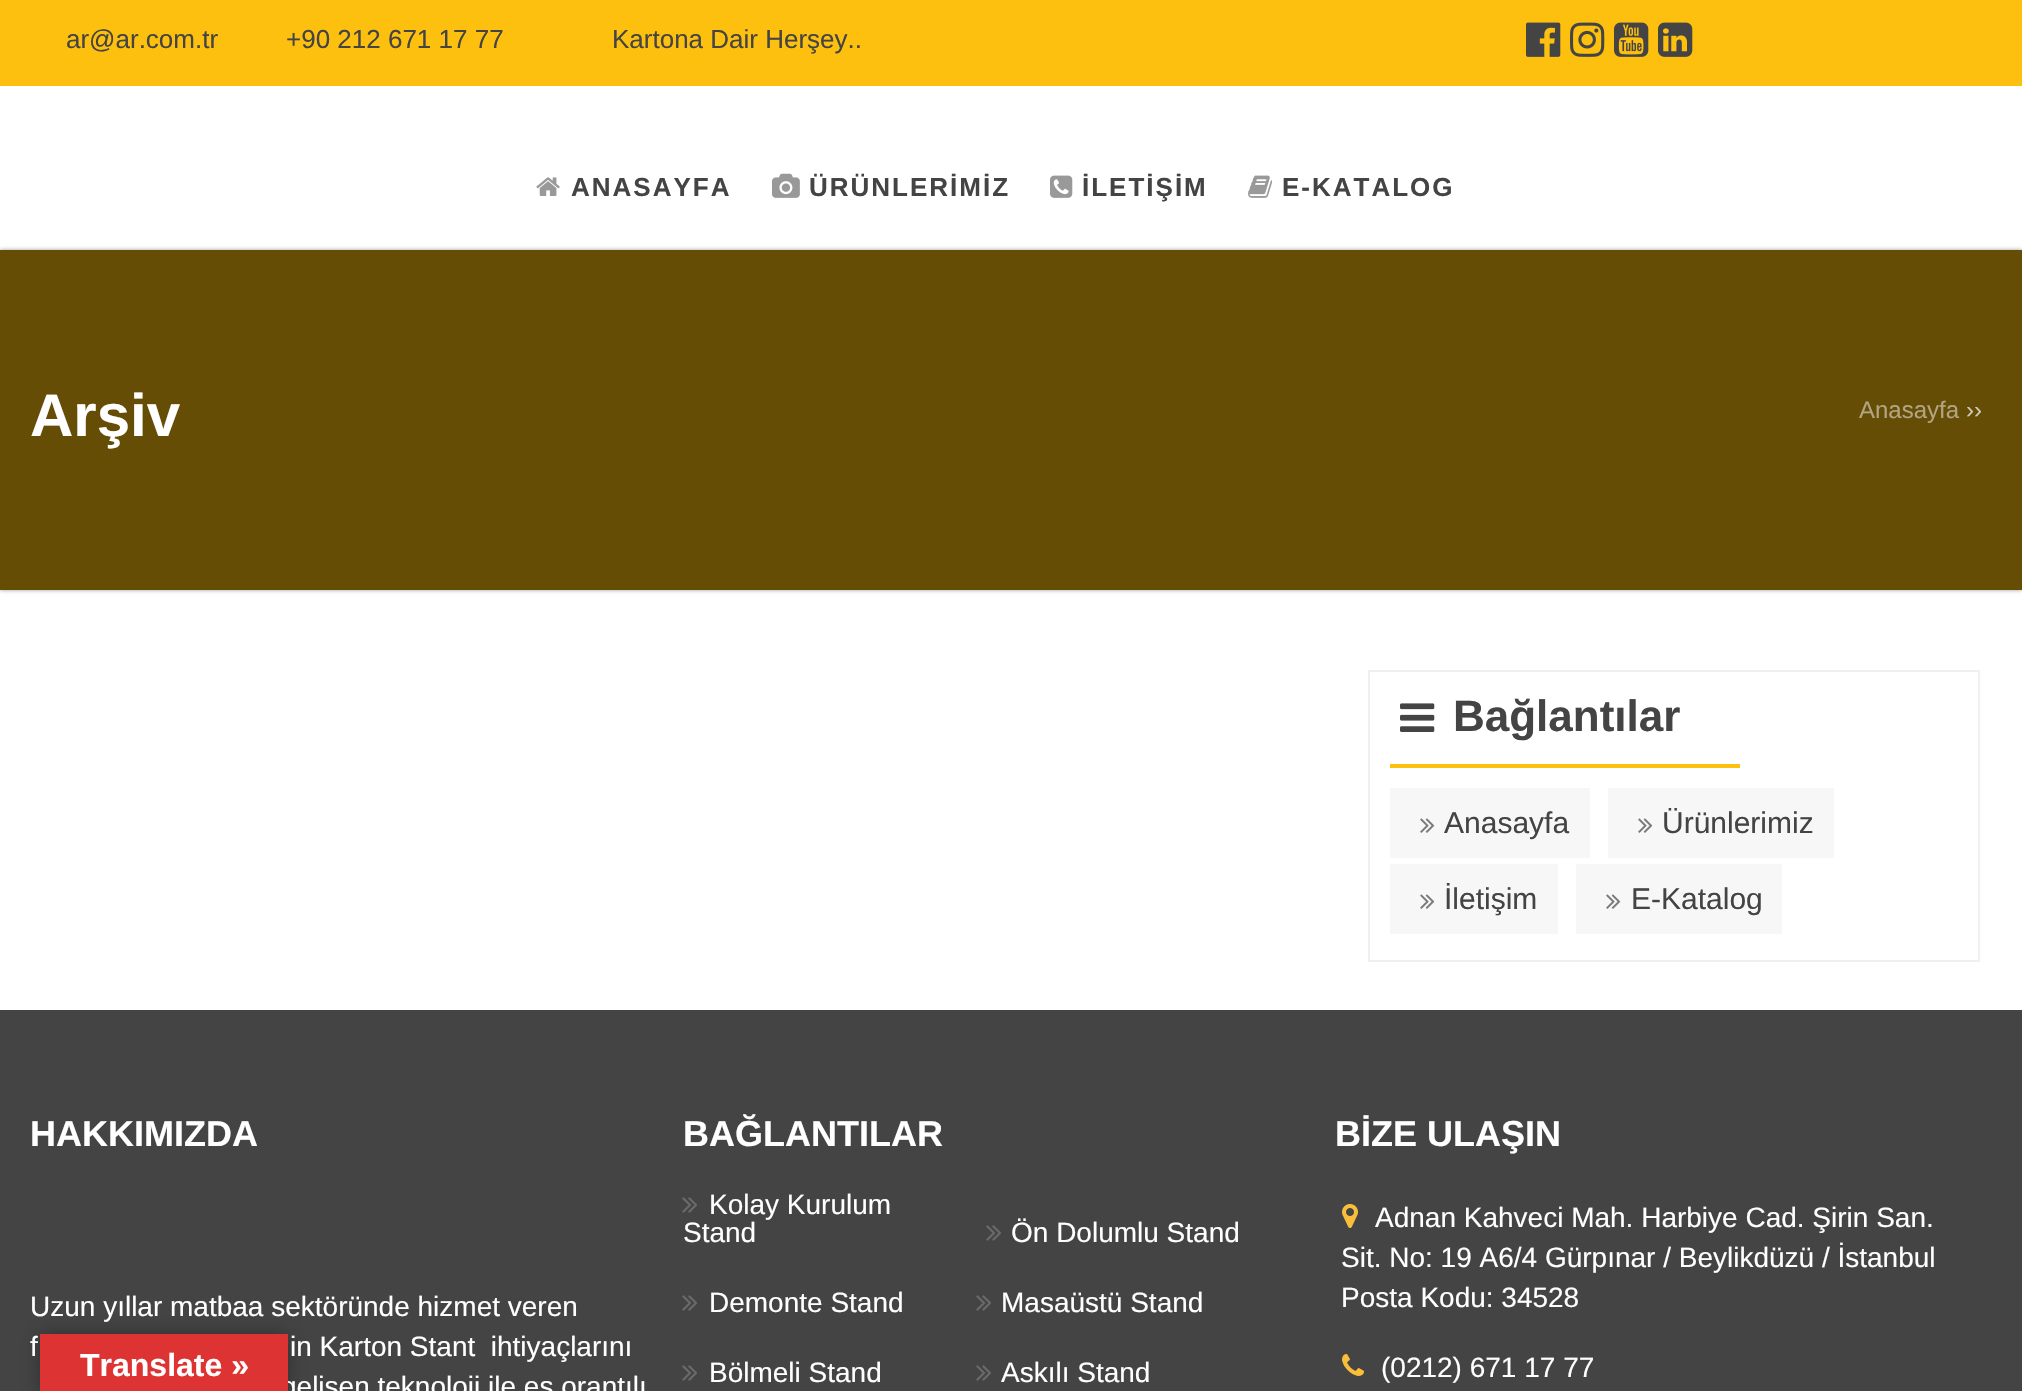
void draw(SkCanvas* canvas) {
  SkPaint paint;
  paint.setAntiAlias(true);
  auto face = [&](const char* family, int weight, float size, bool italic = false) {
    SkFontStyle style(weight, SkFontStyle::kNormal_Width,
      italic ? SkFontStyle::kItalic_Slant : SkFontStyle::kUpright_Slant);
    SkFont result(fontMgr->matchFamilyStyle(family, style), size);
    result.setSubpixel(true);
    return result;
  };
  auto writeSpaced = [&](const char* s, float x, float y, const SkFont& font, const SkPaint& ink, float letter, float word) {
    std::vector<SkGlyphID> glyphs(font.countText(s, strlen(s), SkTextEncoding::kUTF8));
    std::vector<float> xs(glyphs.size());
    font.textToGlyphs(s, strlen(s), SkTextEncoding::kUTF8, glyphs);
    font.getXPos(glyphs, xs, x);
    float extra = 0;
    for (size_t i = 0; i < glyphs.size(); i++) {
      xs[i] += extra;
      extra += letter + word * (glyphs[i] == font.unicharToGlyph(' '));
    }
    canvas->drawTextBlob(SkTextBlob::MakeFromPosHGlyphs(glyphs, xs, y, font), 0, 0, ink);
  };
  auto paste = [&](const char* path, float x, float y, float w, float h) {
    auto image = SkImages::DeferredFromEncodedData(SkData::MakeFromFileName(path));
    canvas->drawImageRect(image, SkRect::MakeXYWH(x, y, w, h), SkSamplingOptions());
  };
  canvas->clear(0xffffffff);
  paint.setColor(0xfffec00f);
  canvas->drawRect(SkRect::MakeXYWH(0, 0, 2022, 86), paint);
  paste("img/1.png", 1526, 22, 35, 35);
  paste("img/2.png", 1570, 22, 35, 35);
  paste("img/3.png", 1614, 22, 35, 35);
  paste("img/4.png", 1658, 22, 35, 35);
  paste("img/5.png", 536, 177, 24, 19);
  paste("img/6.png", 772, 173, 28, 25);
  paste("img/7.png", 1050, 175, 23, 23);
  paste("img/8.png", 1248, 175, 25, 23);
  paint.setColor(0xff999999);
  paint.setMaskFilter(SkMaskFilter::MakeBlur(kNormal_SkBlurStyle, 2));
  canvas->drawRect(SkRect::MakeXYWH(0, 250, 2022, 340), paint);
  paint.setMaskFilter(nullptr);
  paint.setColor(0xff664d06);
  canvas->drawRect(SkRect::MakeXYWH(0, 250, 2022, 340), paint);
  paint.setStroke(true);
  paint.setStrokeWidth(2);
  paint.setColor(0xfff0f0f0);
  canvas->drawRect(SkRect::MakeXYWH(1369, 671, 610, 290), paint);
  paint.setStroke(false);
  paint.setColor(0xfffec00f);
  canvas->drawRect(SkRect::MakeXYWH(1390, 764, 350, 4), paint);
  paste("img/9.png", 1400, 703, 35, 29);
  paint.setColor(0xfff7f7f7);
  canvas->drawRect(SkRect::MakeXYWH(1390, 788, 200, 70), paint);
  paste("img/10.png", 1420, 818, 15, 15);
  canvas->drawRect(SkRect::MakeXYWH(1608, 788, 226, 70), paint);
  paste("img/10.png", 1638, 818, 15, 15);
  canvas->drawRect(SkRect::MakeXYWH(1390, 864, 168, 70), paint);
  paste("img/10.png", 1420, 894, 15, 15);
  canvas->drawRect(SkRect::MakeXYWH(1576, 864, 206, 70), paint);
  paste("img/10.png", 1606, 894, 15, 15);
  paint.setColor(0xff444444);
  canvas->drawRect(SkRect::MakeXYWH(0, 1010, 2022, 381), paint);
  paste("img/11.png", 682, 1197, 15, 16);
  paste("img/11.png", 986, 1225, 15, 16);
  paste("img/11.png", 682, 1295, 15, 16);
  paste("img/11.png", 976, 1295, 15, 16);
  paste("img/11.png", 682, 1365, 15, 16);
  paste("img/11.png", 976, 1365, 15, 16);
  paste("img/12.png", 1342, 1204, 16, 24);
  paste("img/13.png", 1342, 1354, 22, 22);
  paint.setColor(0x4d000000);
  paint.setMaskFilter(SkMaskFilter::MakeBlur(kNormal_SkBlurStyle, 9));
  canvas->drawRect(SkRect::MakeXYWH(40, 1334, 248, 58), paint);
  paint.setMaskFilter(nullptr);
  auto f0 = face("Liberation Sans", 400, 26);
  paint.setColor(0xff444444);
  {
    const struct { const char* s; float x, y; } items[] = {
      {"ar@ar.com.tr", 66, 48},
      {"+90 212 671 17 77", 286, 48},
      {"Kartona Dair Herşey..", 612, 48},
    };
    for (auto [s, x, y] : items) {
      canvas->drawString(s, x, y, f0, paint);
    }
  }
  auto f1 = face("Liberation Sans", 700, 26);
  {
    const struct { const char* s; float x, y; } items[] = {
      {"ANASAYFA", 571, 196},
      {"ÜRÜNLERİMİZ", 809, 196},
      {"İLETİŞİM", 1082, 196},
      {"E-KATALOG", 1282, 196},
    };
    for (auto [s, x, y] : items) {
      writeSpaced(s, x, y, f1, paint, 2, 0);
    }
  }
  auto f2 = face("Liberation Sans", 700, 60);
  paint.setColor(0xffffffff);
  canvas->drawString("Arşiv", 30, 436, f2, paint);
  auto f3 = face("Liberation Sans", 400, 24);
  paint.setColor(0xffb1a480);
  canvas->drawString("Anasayfa", 1859, 418, f3, paint);
  paint.setColor(0xffd1cab4);
  canvas->drawString("››", 1966, 418, f3, paint);
  auto f4 = face("Liberation Sans", 700, 44);
  paint.setColor(0xff444444);
  canvas->drawString("Bağlantılar", 1453, 731, f4, paint);
  auto f5 = face("Liberation Sans", 400, 30);
  {
    const struct { const char* s; float x, y; } items[] = {
      {"Anasayfa", 1444, 833},
      {"Ürünlerimiz", 1662, 833},
      {"İletişim", 1444, 909},
      {"E-Katalog", 1631, 909},
    };
    for (auto [s, x, y] : items) {
      canvas->drawString(s, x, y, f5, paint);
    }
  }
  auto f6 = face("Liberation Sans", 700, 36);
  paint.setColor(0xffffffff);
  canvas->drawString("HAKKIMIZDA", 30, 1146, f6, paint);
  auto f7 = face("Liberation Sans", 400, 28);
  {
    const struct { const char* s; float x, y; } items[] = {
      {"Uzun yıllar matbaa sektöründe hizmet veren", 30, 1316},
      {"f", 30, 1356},
      {"in Karton Stant  ihtiyaçlarını", 290, 1356},
      {"gelişen teknoloji ile eş orantılı", 281, 1396},
    };
    for (auto [s, x, y] : items) {
      canvas->drawString(s, x, y, f7, paint);
    }
  }
  canvas->drawString("BAĞLANTILAR", 683, 1146, f6, paint);
  {
    const struct { const char* s; float x, y; } items[] = {
      {"Kolay Kurulum", 709, 1214},
      {"Stand", 683, 1242},
      {"Ön Dolumlu Stand", 1011, 1242},
      {"Demonte Stand", 709, 1312},
      {"Masaüstü Stand", 1001, 1312},
      {"Bölmeli Stand", 709, 1382},
      {"Askılı Stand", 1001, 1382},
    };
    for (auto [s, x, y] : items) {
      canvas->drawString(s, x, y, f7, paint);
    }
  }
  canvas->drawString("BİZE ULAŞIN", 1335, 1146, f6, paint);
  {
    const struct { const char* s; float x, y; } items[] = {
      {"Adnan Kahveci Mah. Harbiye Cad. Şirin San.", 1375, 1227},
      {"Sit. No: 19 A6/4 Gürpınar / Beylikdüzü / İstanbul", 1341, 1267},
      {"Posta Kodu: 34528", 1341, 1307},
      {"(0212) 671 17 77", 1381, 1377},
    };
    for (auto [s, x, y] : items) {
      canvas->drawString(s, x, y, f7, paint);
    }
  }
  paint.setColor(0xffdd3333);
  canvas->drawRect(SkRect::MakeXYWH(40, 1334, 248, 57), paint);
  auto f8 = face("Liberation Sans", 700, 32);
  paint.setColor(0xffffffff);
  canvas->drawString("Translate »", 80, 1376, f8, paint);
}
